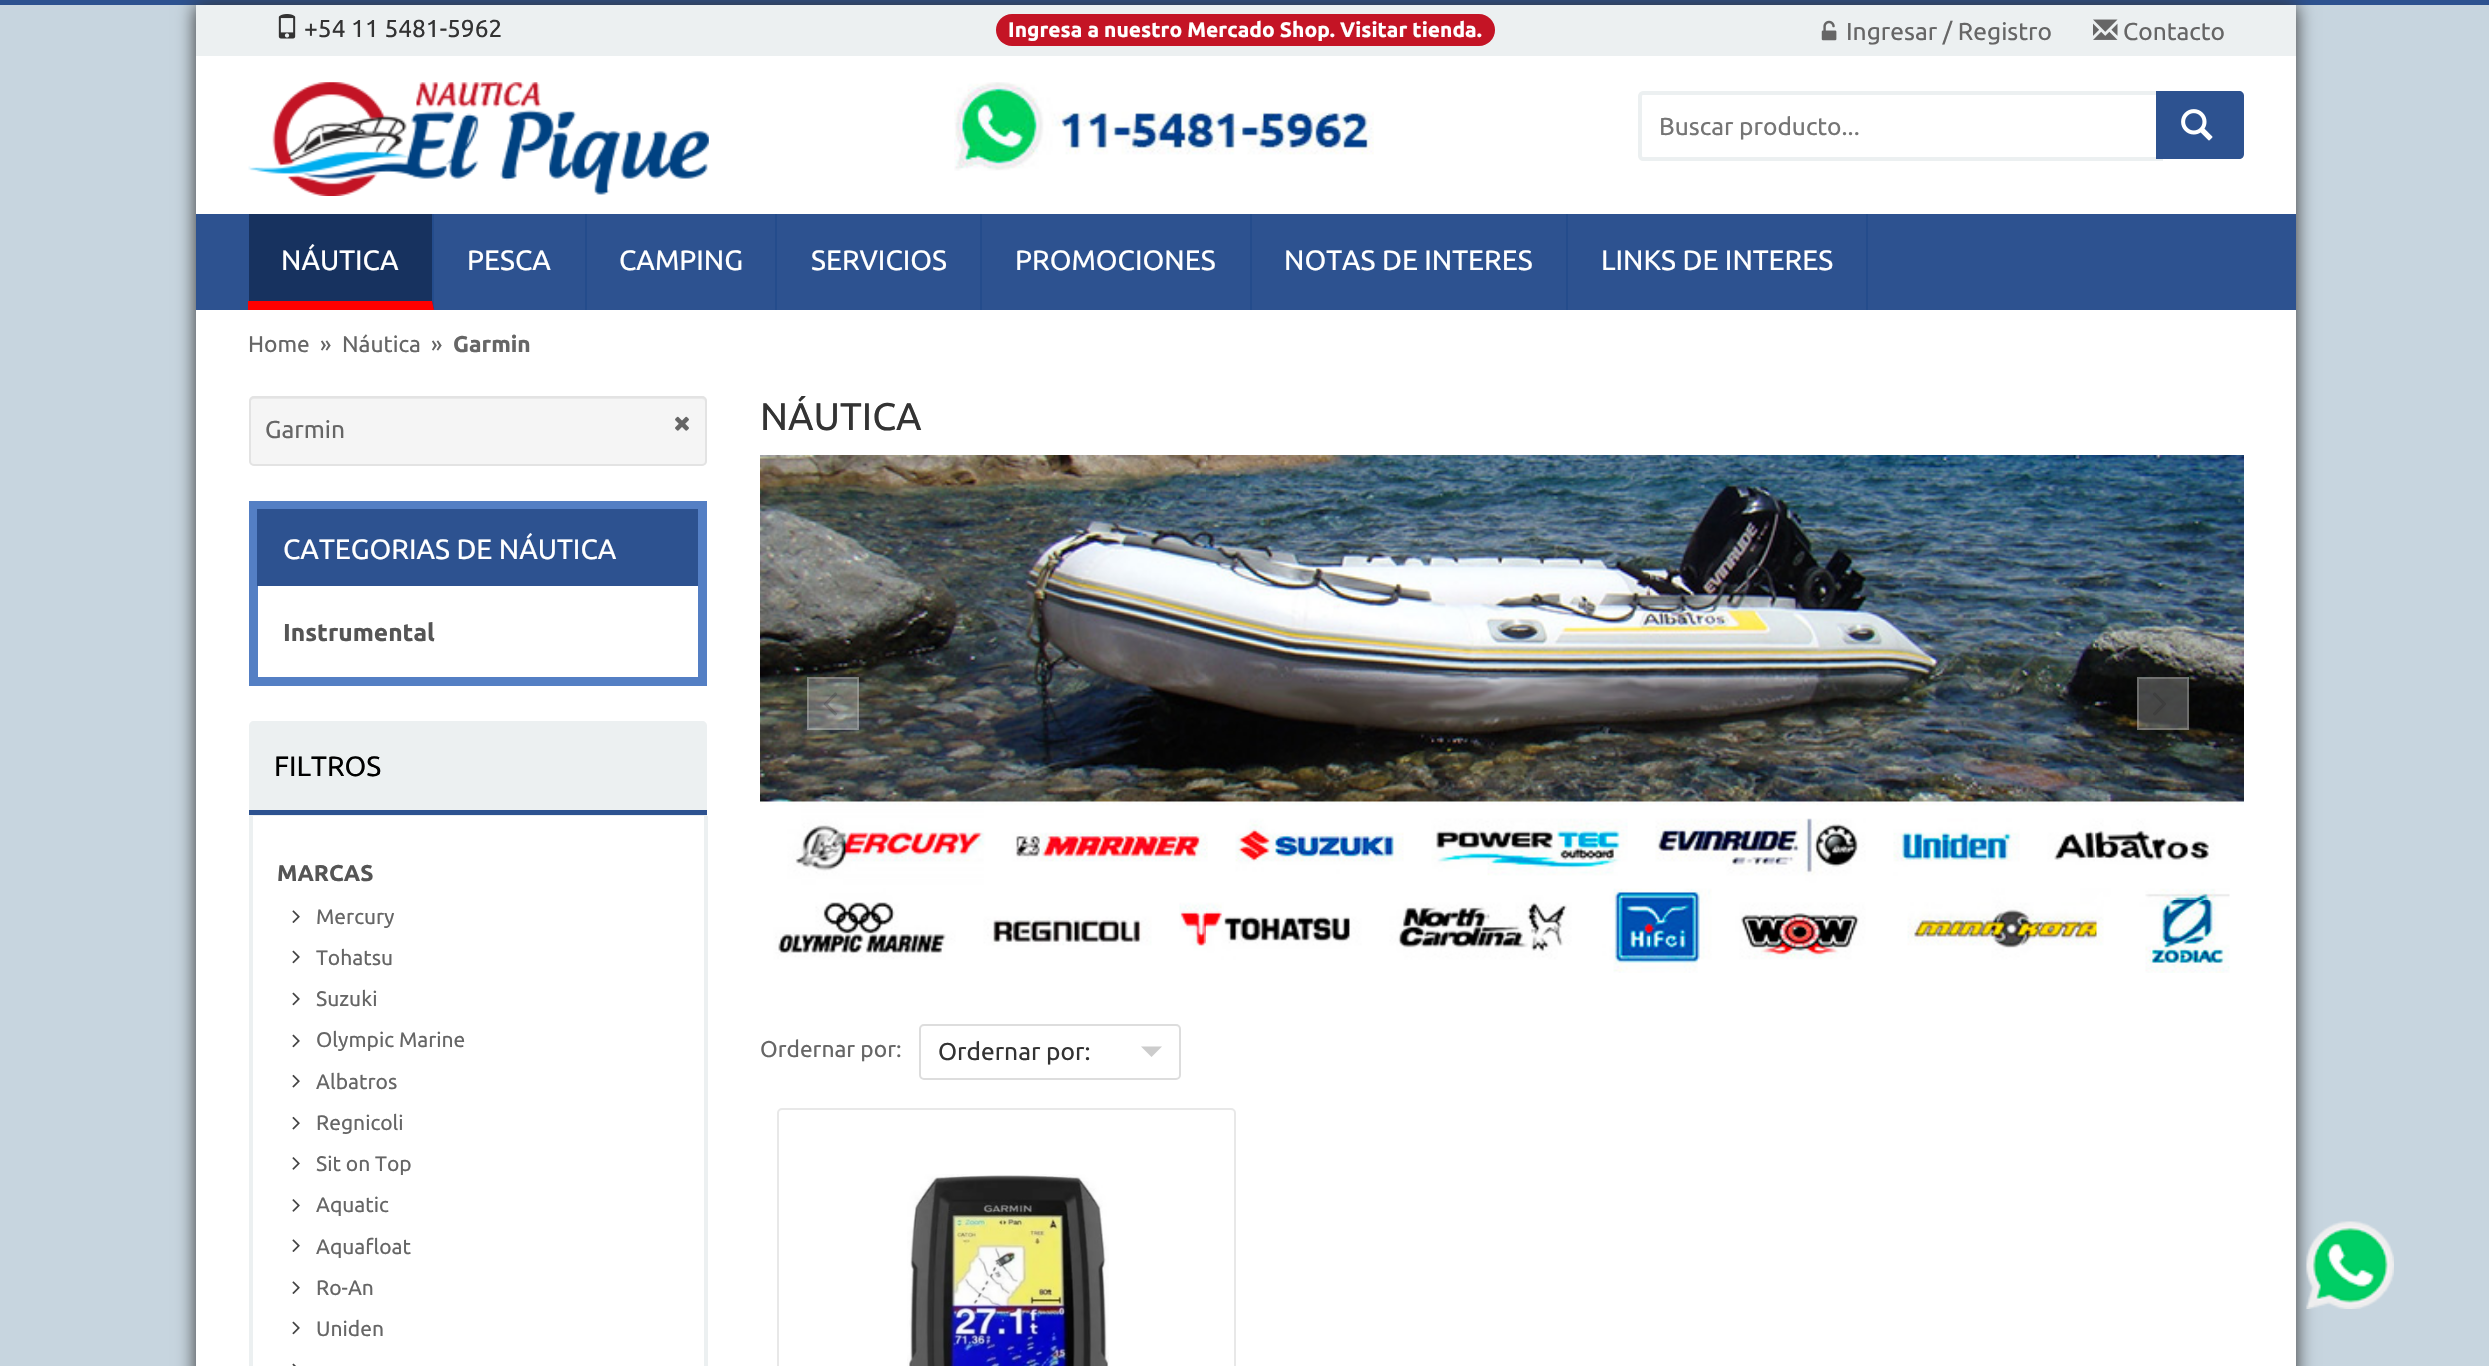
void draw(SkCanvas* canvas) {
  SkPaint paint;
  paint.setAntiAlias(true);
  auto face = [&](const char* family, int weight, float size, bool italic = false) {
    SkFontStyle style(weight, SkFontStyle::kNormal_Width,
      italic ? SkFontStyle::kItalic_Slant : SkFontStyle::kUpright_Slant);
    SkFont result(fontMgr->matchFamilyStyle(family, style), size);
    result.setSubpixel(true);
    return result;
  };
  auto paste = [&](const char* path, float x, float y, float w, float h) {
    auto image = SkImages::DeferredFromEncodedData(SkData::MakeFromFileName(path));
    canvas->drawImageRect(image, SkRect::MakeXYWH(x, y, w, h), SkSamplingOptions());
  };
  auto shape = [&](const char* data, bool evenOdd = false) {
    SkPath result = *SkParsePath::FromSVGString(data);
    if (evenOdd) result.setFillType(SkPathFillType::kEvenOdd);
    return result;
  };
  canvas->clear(0xffc7d5df);
  paint.setColor(0xff2d5290);
  canvas->drawRect(SkRect::MakeXYWH(0, 0, 2489, 5), paint);
  paint.setColor(0xff323232);
  paint.setMaskFilter(SkMaskFilter::MakeBlur(kNormal_SkBlurStyle, 9));
  canvas->drawRect(SkRect::MakeXYWH(196, 5, 2100, 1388), paint);
  paint.setMaskFilter(nullptr);
  paint.setColor(0xffffffff);
  canvas->drawRect(SkRect::MakeXYWH(196, 56, 2100, 1310), paint);
  paint.setColor(0xffecf0f1);
  canvas->drawRect(SkRect::MakeXYWH(196, 5, 2100, 51), paint);
  paste("img/1.png", 278, 14, 18, 25);
  paint.setColor(0xffc41425);
  canvas->drawRoundRect(SkRect::MakeXYWH(996, 14, 499, 32), 16, 16, paint);
  paste("img/2.png", 1821, 20, 16, 21);
  paste("img/3.png", 2093, 19, 25, 21);
  paste("img/4.png", 248, 82, 461, 114);
  paste("img/5.png", 954, 82, 420, 89);
  paint.setStroke(true);
  paint.setStrokeWidth(4);
  paint.setColor(0xffecf0f1);
  canvas->drawPath(shape("M1643 93H2161V159H1643C1641.5 159 1640 157.5 1640 156V96C1640 94.5 1641.5 93 1643 93Z"), paint);
  paint.setStroke(false);
  paint.setColor(0xff2d5290);
  canvas->drawPath(shape("M2156 91H2239C2242 91 2244 93 2244 96V154C2244 157 2242 159 2239 159H2156Z"), paint);
  paste("img/6.png", 2181, 109, 32, 32);
  paste("img/7.png", 2306, 1221, 88, 88);
  canvas->drawRect(SkRect::MakeXYWH(196, 214, 2100, 96), paint);
  paint.setColor(0xff17325f);
  canvas->drawRect(SkRect::MakeXYWH(249, 214, 185, 96), paint);
  paint.setColor(0xff244c8c);
  canvas->drawPath(shape("M434 214V310L432 301V214Z"), paint);
  paint.setColor(0xffff0000);
  canvas->drawPath(shape("M434 310H248V301H432Z"), paint);
  {
    const struct { float x, y, w, h; SkColor color; } items[] = {
      {585, 214, 2, 96, 0xff244c8c},
      {775, 214, 2, 96, 0xff244c8c},
      {980, 214, 2, 96, 0xff244c8c},
      {1250, 214, 2, 96, 0xff244c8c},
      {1566, 214, 2, 96, 0xff244c8c},
      {1866, 214, 2, 96, 0xff244c8c},
    };
    for (auto [x, y, w, h, color] : items) {
      paint.setColor(color);
      canvas->drawRect(SkRect::MakeXYWH(x, y, w, h), paint);
    }
  }
  paint.setColor(0xfff5f5f5);
  canvas->drawRoundRect(SkRect::MakeXYWH(249, 396, 458, 70), 5, 5, paint);
  paint.setColor(0xffe9e9e9);
  canvas->drawPath(shape("M254 399H702C704 399 705 401 705 402C705 399 704 397 701 397H254L252 398L251 399L250 402C250 401 252 399 254 399Z"), paint);
  paint.setStroke(true);
  paint.setStrokeWidth(2);
  paint.setColor(0xffe3e3e3);
  canvas->drawRoundRect(SkRect::MakeXYWH(250, 397, 456, 68), 4, 4, paint);
  paste("img/8.png", 675, 416, 14, 15);
  paint.setStrokeWidth(9);
  paint.setColor(0xff547fc4);
  canvas->drawRect(SkRect::MakeXYWH(253.5f, 505.5f, 449, 176), paint);
  paint.setStroke(false);
  paint.setColor(0xff2d5290);
  canvas->drawRect(SkRect::MakeXYWH(257, 509, 441, 77), paint);
  paint.setColor(0xffecf0f1);
  canvas->drawPath(shape("M254 721H702C705 721 707 723 707 726V816H249V726C249 723 251 721 254 721Z"), paint);
  {
    const struct { float x, y, w, h; SkColor color; } items[] = {
      {249, 810, 458, 5, 0xff2d5290},
      {704, 816, 4, 550, 0xffecf0f1},
      {249, 816, 4, 550, 0xffecf0f1},
    };
    for (auto [x, y, w, h, color] : items) {
      paint.setColor(color);
      canvas->drawRect(SkRect::MakeXYWH(x, y, w, h), paint);
    }
  }
  paste("img/9.png", 292, 910, 8, 13);
  paste("img/10.png", 292, 950, 8, 14);
  paste("img/10.png", 292, 992, 8, 14);
  paste("img/10.png", 292, 1034, 8, 14);
  paste("img/11.png", 292, 1074, 8, 14);
  paste("img/11.png", 292, 1116, 8, 14);
  paste("img/12.png", 292, 1157, 8, 13);
  paste("img/12.png", 292, 1199, 8, 13);
  paste("img/9.png", 292, 1239, 8, 13);
  paste("img/9.png", 292, 1281, 8, 13);
  paste("img/10.png", 292, 1321, 8, 14);
  paste("img/13.png", 292, 1363, 4, 3);
  paste("img/14.png", 760, 455, 1484, 518);
  paint.setColor(0x40ffffff);
  canvas->drawRect(SkRect::MakeXYWH(807, 677, 52, 53), paint);
  paint.setStroke(true);
  paint.setStrokeWidth(2);
  paint.setColor(0x40dddddd);
  canvas->drawRect(SkRect::MakeXYWH(808, 678, 50, 51), paint);
  paste("img/15.png", 823, 692, 14, 24);
  paint.setStroke(false);
  paint.setColor(0x40ffffff);
  canvas->drawRect(SkRect::MakeXYWH(2137, 677, 52, 53), paint);
  paint.setStroke(true);
  paint.setColor(0x40dddddd);
  canvas->drawRect(SkRect::MakeXYWH(2138, 678, 50, 51), paint);
  paste("img/16.png", 2153, 692, 13, 24);
  paint.setColor(0xffdddddd);
  canvas->drawRoundRect(SkRect::MakeXYWH(920, 1025, 260, 54), 4, 4, paint);
  paint.setStroke(false);
  paint.setColor(0xffcccccc);
  canvas->drawPath(shape("M1141 1046.5H1162L1151.5 1057Z"), paint);
  paint.setStroke(true);
  paint.setColor(0xffe8e8e8);
  canvas->drawRoundRect(SkRect::MakeXYWH(778, 1109, 457, 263), 4, 4, paint);
  paste("img/17.png", 907, 1174, 202, 192);
  auto f0 = face("Ubuntu", 400, 24.5f);
  paint.setStroke(false);
  paint.setColor(0xff333333);
  canvas->drawString("+54 11 5481-5962", 304, 37, f0, paint);
  auto f1 = face("Ubuntu", 700, 21);
  paint.setColor(0xffffffff);
  canvas->drawString("Ingresa a nuestro Mercado Shop. Visitar tienda.", 1008, 37, f1, paint);
  paint.setColor(0xff666666);
  canvas->drawString("Ingresar / Registro", 1846, 40, f0, paint);
  canvas->drawString("Contacto", 2123, 40, f0, paint);
  paint.setColor(0xff757575);
  canvas->drawString("Buscar producto...", 1659, 135, f0, paint);
  auto f2 = face("Ubuntu", 400, 28);
  paint.setColor(0xffffffff);
  {
    const struct { const char* s; float x, y; } items[] = {
      {"NÁUTICA", 281, 270},
      {"PESCA", 467, 270},
      {"CAMPING", 619, 270},
      {"SERVICIOS", 811, 270},
      {"PROMOCIONES", 1015, 270},
      {"NOTAS DE INTERES", 1284, 270},
      {"LINKS DE INTERES", 1601, 270},
    };
    for (auto [s, x, y] : items) {
      canvas->drawString(s, x, y, f2, paint);
    }
  }
  auto f3 = face("Ubuntu", 400, 22.75f);
  paint.setColor(0xff666666);
  {
    const struct { const char* s; float x, y; } items[] = {
      {"Home", 248, 352},
      {"»", 320, 352},
      {"Náutica", 342, 352},
      {"»", 431, 352},
    };
    for (auto [s, x, y] : items) {
      canvas->drawString(s, x, y, f3, paint);
    }
  }
  auto f4 = face("Ubuntu", 700, 22.75f);
  canvas->drawString("Garmin", 453, 352, f4, paint);
  canvas->drawString("Garmin", 265, 438, f0, paint);
  paint.setColor(0xffffffff);
  canvas->drawString("CATEGORIAS DE NÁUTICA", 283, 559, f2, paint);
  auto f5 = face("Ubuntu", 700, 24.5f);
  paint.setColor(0xff555555);
  canvas->drawString("Instrumental", 283, 641, f5, paint);
  paint.setColor(0xff000000);
  canvas->drawString("FILTROS", 274, 776, f2, paint);
  paint.setColor(0xff555555);
  canvas->drawString("MARCAS", 277, 881, f4, paint);
  auto f6 = face("Ubuntu", 400, 21);
  paint.setColor(0xff666666);
  {
    const struct { const char* s; float x, y; } items[] = {
      {"Mercury", 316, 924},
      {"Tohatsu", 316, 965},
      {"Suzuki", 316, 1006},
      {"Olympic Marine", 316, 1047},
      {"Albatros", 316, 1089},
      {"Regnicoli", 316, 1130},
      {"Sit on Top", 316, 1171},
      {"Aquatic", 316, 1212},
      {"Aquafloat", 316, 1254},
      {"Ro-An", 316, 1295},
      {"Uniden", 316, 1336},
    };
    for (auto [s, x, y] : items) {
      canvas->drawString(s, x, y, f6, paint);
    }
  }
  canvas->save();
  canvas->clipRect(SkRect::MakeXYWH(760, 396, 1484, 59));
  auto f7 = face("Ubuntu", 400, 38.5f);
  paint.setColor(0xff333333);
  canvas->drawString("NÁUTICA", 760, 430, f7, paint);
  canvas->restore();
  paint.setColor(0xff666666);
  canvas->drawString("Ordernar por:", 760, 1057, f3, paint);
  paint.setColor(0xff333333);
  canvas->drawString("Ordernar por:", 938, 1060, f0, paint);
}
